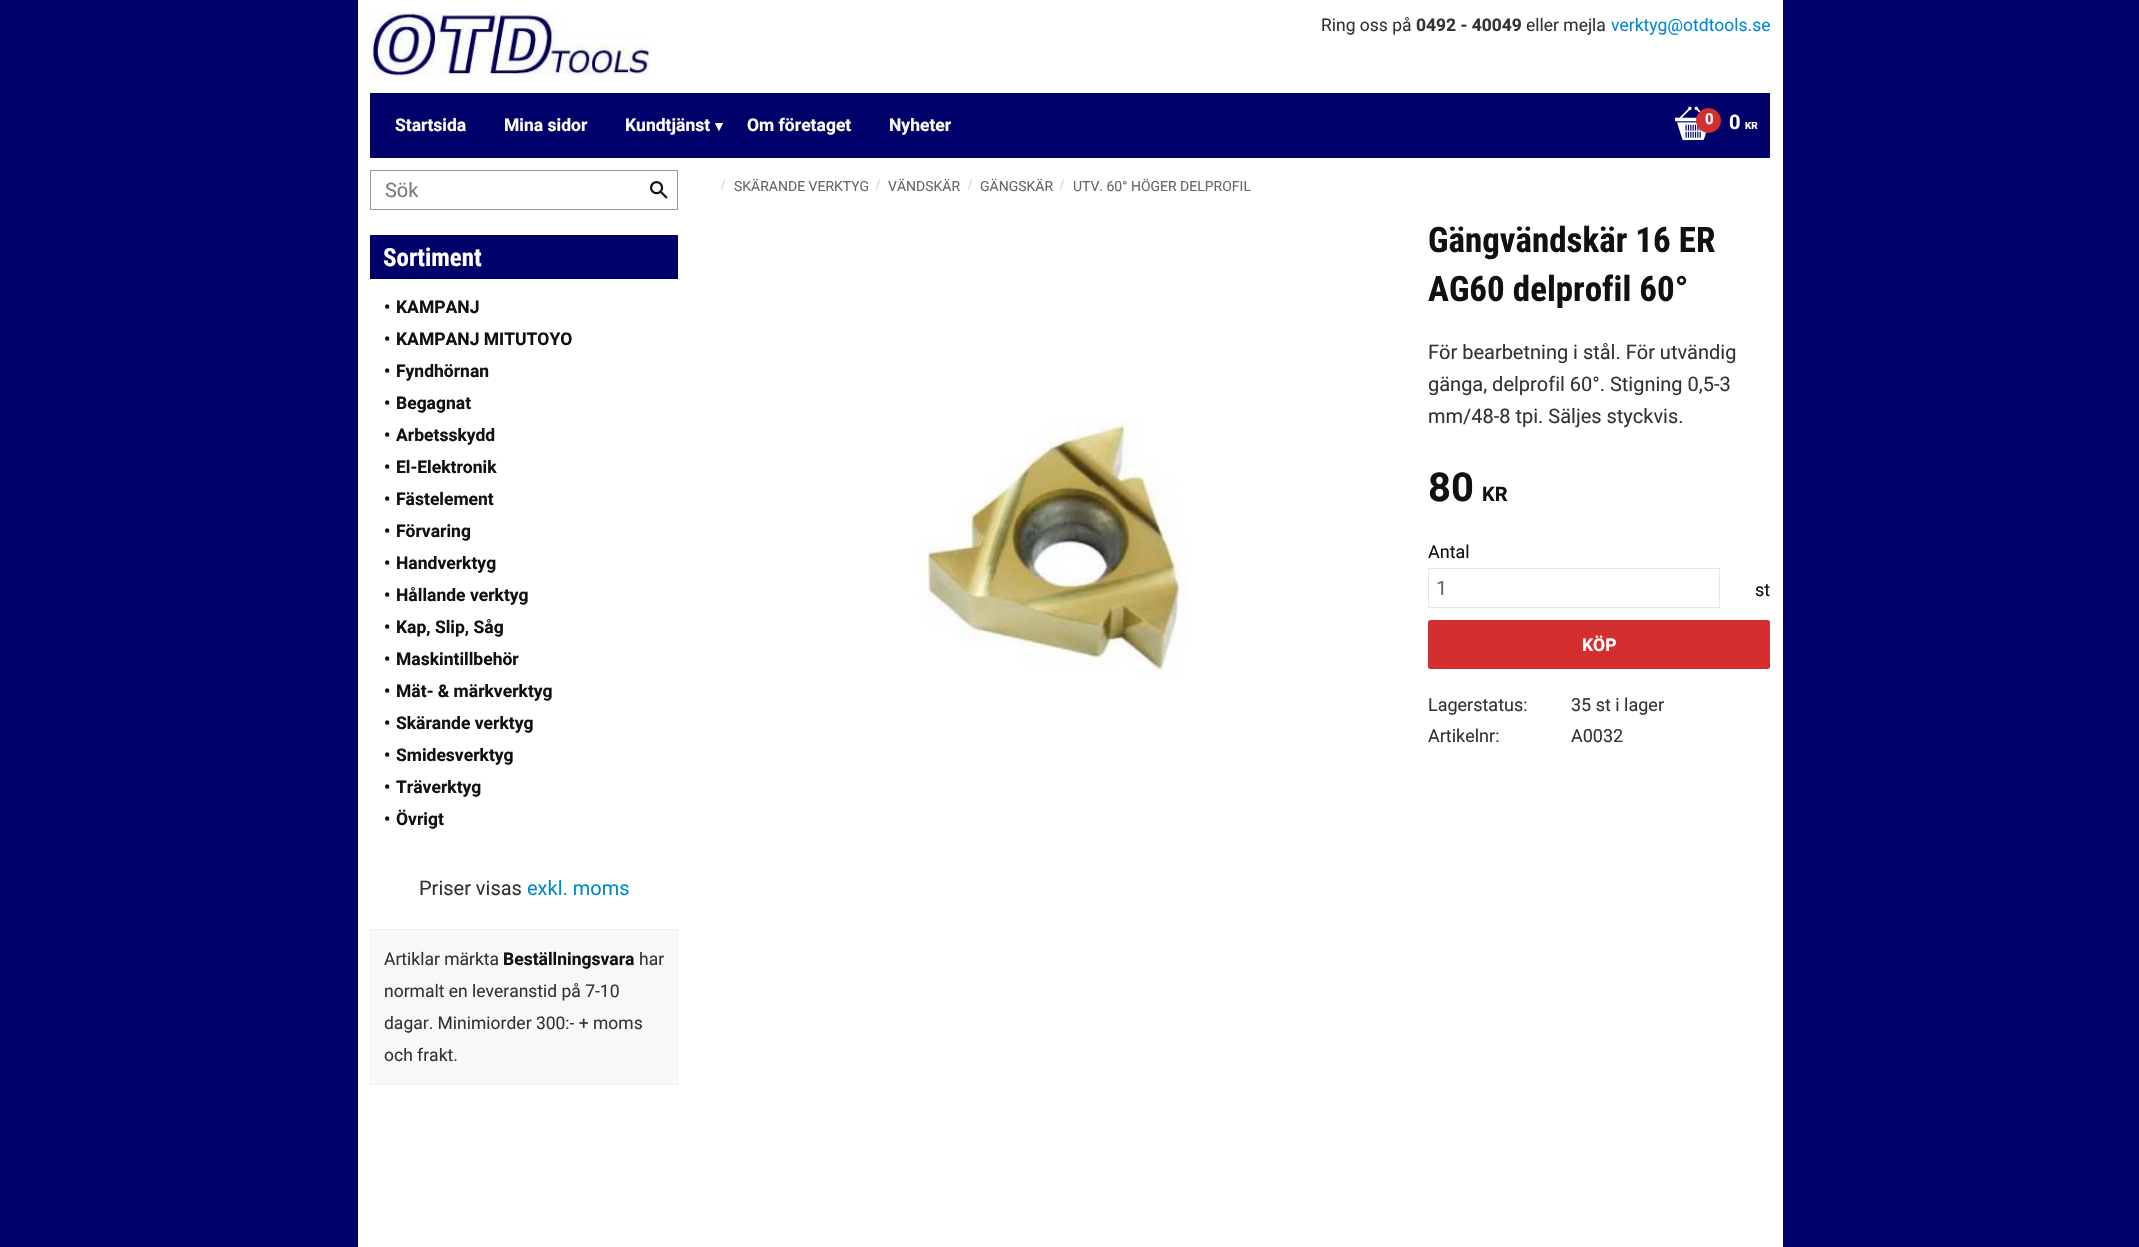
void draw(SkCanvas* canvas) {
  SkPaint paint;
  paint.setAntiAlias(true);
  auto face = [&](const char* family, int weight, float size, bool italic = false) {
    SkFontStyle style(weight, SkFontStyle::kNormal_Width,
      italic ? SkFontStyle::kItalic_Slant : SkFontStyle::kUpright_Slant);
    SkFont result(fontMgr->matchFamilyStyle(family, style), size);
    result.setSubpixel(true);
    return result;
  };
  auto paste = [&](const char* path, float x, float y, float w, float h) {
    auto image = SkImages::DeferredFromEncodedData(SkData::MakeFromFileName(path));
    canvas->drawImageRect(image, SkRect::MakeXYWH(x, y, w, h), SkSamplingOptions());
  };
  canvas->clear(0xff00006b);
  paint.setColor(0xffffffff);
  canvas->drawRect(SkRect::MakeXYWH(358, 0, 1425, 1247), paint);
  paste("img/1.png", 370, 12, 281, 68);
  paint.setColor(0xff00006b);
  canvas->drawRect(SkRect::MakeXYWH(370, 93, 1400, 65), paint);
  paste("img/2.png", 1675, 106, 32, 35);
  paint.setColor(0xffd32f2f);
  canvas->drawCircle(1708.5f, 120.5f, 12, paint);
  paint.setStroke(true);
  paint.setStrokeWidth(1);
  canvas->drawCircle(1708.5f, 120.5f, 12, paint);
  paint.setColor(0xff999999);
  canvas->drawRect(SkRect::MakeXYWH(370.5f, 170.5f, 307, 39), paint);
  paste("img/3.png", 650, 181, 18, 18);
  paint.setStroke(false);
  paint.setColor(0xff00006b);
  canvas->drawRect(SkRect::MakeXYWH(370, 235, 308, 44), paint);
  paint.setColor(0xfff8f8f8);
  canvas->drawRect(SkRect::MakeXYWH(370.5f, 929.5f, 307, 155), paint);
  paint.setStroke(true);
  paint.setColor(0xfff1f1f1);
  canvas->drawRect(SkRect::MakeXYWH(370.5f, 929.5f, 307, 155), paint);
  paste("img/4.png", 917, 418, 272, 260);
  paint.setColor(0xffe5e5e5);
  canvas->drawRect(SkRect::MakeXYWH(1428.5f, 568.5f, 291, 39), paint);
  paint.setStroke(false);
  paint.setColor(0xffd32f2f);
  canvas->drawRoundRect(SkRect::MakeXYWH(1428, 620, 342, 49), 2.5f, 2.5f, paint);
  auto f0 = face("Roboto", 400, 17.5f);
  paint.setColor(0xff333333);
  canvas->drawString("Ring oss på", 1321, 31, f0, paint);
  auto f1 = face("Roboto", 700, 17.5f);
  canvas->drawString("0492 - 40049", 1416, 31, f1, paint);
  canvas->drawString("eller mejla", 1526, 31, f0, paint);
  paint.setColor(0xff0288d1);
  canvas->drawString("verktyg@otdtools.se", 1611, 31, f0, paint);
  paint.setColor(0xffffffff);
  {
    const struct { const char* s; float x, y; } items[] = {
      {"Startsida", 395, 131},
      {"Mina sidor", 504, 131},
      {"Kundtjänst", 625, 131},
    };
    for (auto [s, x, y] : items) {
      canvas->drawString(s, x, y, f1, paint);
    }
  }
  auto f2 = face("DejaVu Sans", 700, 15);
  canvas->drawString("▾", 715, 131, f2, paint);
  canvas->drawString("Om företaget", 747, 131, f1, paint);
  canvas->drawString("Nyheter", 889, 131, f1, paint);
  auto f3 = face("Roboto", 700, 15);
  canvas->drawString("0", 1705, 124, f3, paint);
  auto f4 = face("Roboto", 700, 20);
  canvas->drawString("0", 1729, 129, f4, paint);
  auto f5 = face("Roboto", 700, 10);
  canvas->drawString("KR", 1745, 129, f5, paint);
  auto f6 = face("Roboto", 400, 20);
  paint.setColor(0xff787878);
  canvas->drawString("Sök", 385, 197, f6, paint);
  auto f7 = face("Roboto Condensed", 700, 25);
  paint.setColor(0xffffffff);
  canvas->drawString("Sortiment", 383, 266, f7, paint);
  paint.setColor(0xff111111);
  {
    const struct { const char* s; float x, y; } items[] = {
      {"•", 384, 313},
      {"KAMPANJ", 396, 313},
      {"•", 384, 345},
      {"KAMPANJ MITUTOYO", 396, 345},
      {"•", 384, 377},
      {"Fyndhörnan", 396, 377},
      {"•", 384, 409},
      {"Begagnat", 396, 409},
      {"•", 384, 441},
      {"Arbetsskydd", 396, 441},
      {"•", 384, 473},
      {"El-Elektronik", 396, 473},
      {"•", 384, 505},
      {"Fästelement", 396, 505},
      {"•", 384, 537},
      {"Förvaring", 396, 537},
      {"•", 384, 569},
      {"Handverktyg", 396, 569},
      {"•", 384, 601},
      {"Hållande verktyg", 396, 601},
      {"•", 384, 633},
      {"Kap, Slip, Såg", 396, 633},
      {"•", 384, 665},
      {"Maskintillbehör", 396, 665},
      {"•", 384, 697},
      {"Mät- & märkverktyg", 396, 697},
      {"•", 384, 729},
      {"Skärande verktyg", 396, 729},
      {"•", 384, 761},
      {"Smidesverktyg", 396, 761},
      {"•", 384, 793},
      {"Träverktyg", 396, 793},
      {"•", 384, 825},
      {"Övrigt", 396, 825},
    };
    for (auto [s, x, y] : items) {
      canvas->drawString(s, x, y, f1, paint);
    }
  }
  paint.setColor(0xff333333);
  canvas->drawString("Priser visas", 419, 895, f6, paint);
  paint.setColor(0xff0288d1);
  canvas->drawString("exkl. moms", 527, 895, f6, paint);
  paint.setColor(0xff333333);
  canvas->drawString("Artiklar märkta", 384, 965, f0, paint);
  paint.setColor(0xff111111);
  canvas->drawString("Beställningsvara", 503, 965, f1, paint);
  paint.setColor(0xff333333);
  {
    const struct { const char* s; float x, y; } items[] = {
      {"har", 639, 965},
      {"normalt en leveranstid på 7-10", 384, 997},
      {"dagar. Minimiorder 300:- + moms", 384, 1029},
      {"och frakt.", 384, 1061},
    };
    for (auto [s, x, y] : items) {
      canvas->drawString(s, x, y, f0, paint);
    }
  }
  auto f8 = face("Liberation Serif", 400, 14);
  paint.setColor(0xffc3c3c3);
  canvas->drawString("/", 721, 189, f8, paint);
  auto f9 = face("Roboto", 400, 14);
  paint.setColor(0xff666666);
  canvas->drawString("SKÄRANDE VERKTYG", 734, 191, f9, paint);
  paint.setColor(0xffc3c3c3);
  canvas->drawString("/", 876, 189, f8, paint);
  paint.setColor(0xff666666);
  canvas->drawString("VÄNDSKÄR", 888, 191, f9, paint);
  paint.setColor(0xffc3c3c3);
  canvas->drawString("/", 968, 189, f8, paint);
  paint.setColor(0xff666666);
  canvas->drawString("GÄNGSKÄR", 980, 191, f9, paint);
  paint.setColor(0xffc3c3c3);
  canvas->drawString("/", 1060, 189, f8, paint);
  paint.setColor(0xff666666);
  canvas->drawString("UTV. 60° HÖGER DELPROFIL", 1073, 191, f9, paint);
  auto f10 = face("Roboto Condensed", 700, 35);
  paint.setColor(0xff111111);
  canvas->drawString("Gängvändskär 16 ER", 1428, 252, f10, paint);
  canvas->drawString("AG60 delprofil 60°", 1428, 301, f10, paint);
  paint.setColor(0xff333333);
  {
    const struct { const char* s; float x, y; } items[] = {
      {"För bearbetning i stål. För utvändig", 1428, 359},
      {"gänga, delprofil 60°. Stigning 0,5-3", 1428, 391},
      {"mm/48-8 tpi. Säljes styckvis.", 1428, 423},
    };
    for (auto [s, x, y] : items) {
      canvas->drawString(s, x, y, f6, paint);
    }
  }
  auto f11 = face("Roboto", 700, 40);
  paint.setColor(0xff111111);
  canvas->drawString("80", 1428, 501, f11, paint);
  canvas->drawString("KR", 1482, 501, f4, paint);
  auto f12 = face("Roboto", 400, 18);
  canvas->drawString("Antal", 1428, 558, f12, paint);
  paint.setColor(0xff666666);
  canvas->drawString("1", 1436, 595, f6, paint);
  paint.setColor(0xff111111);
  canvas->drawString("st", 1755, 596, f12, paint);
  paint.setColor(0xffffffff);
  canvas->drawString("KÖP", 1582, 651, f1, paint);
  paint.setColor(0xff333333);
  {
    const struct { const char* s; float x, y; } items[] = {
      {"Lagerstatus:", 1428, 711},
      {"35 st i lager", 1571, 711},
      {"Artikelnr:", 1428, 742},
      {"A0032", 1571, 742},
    };
    for (auto [s, x, y] : items) {
      canvas->drawString(s, x, y, f12, paint);
    }
  }
}
